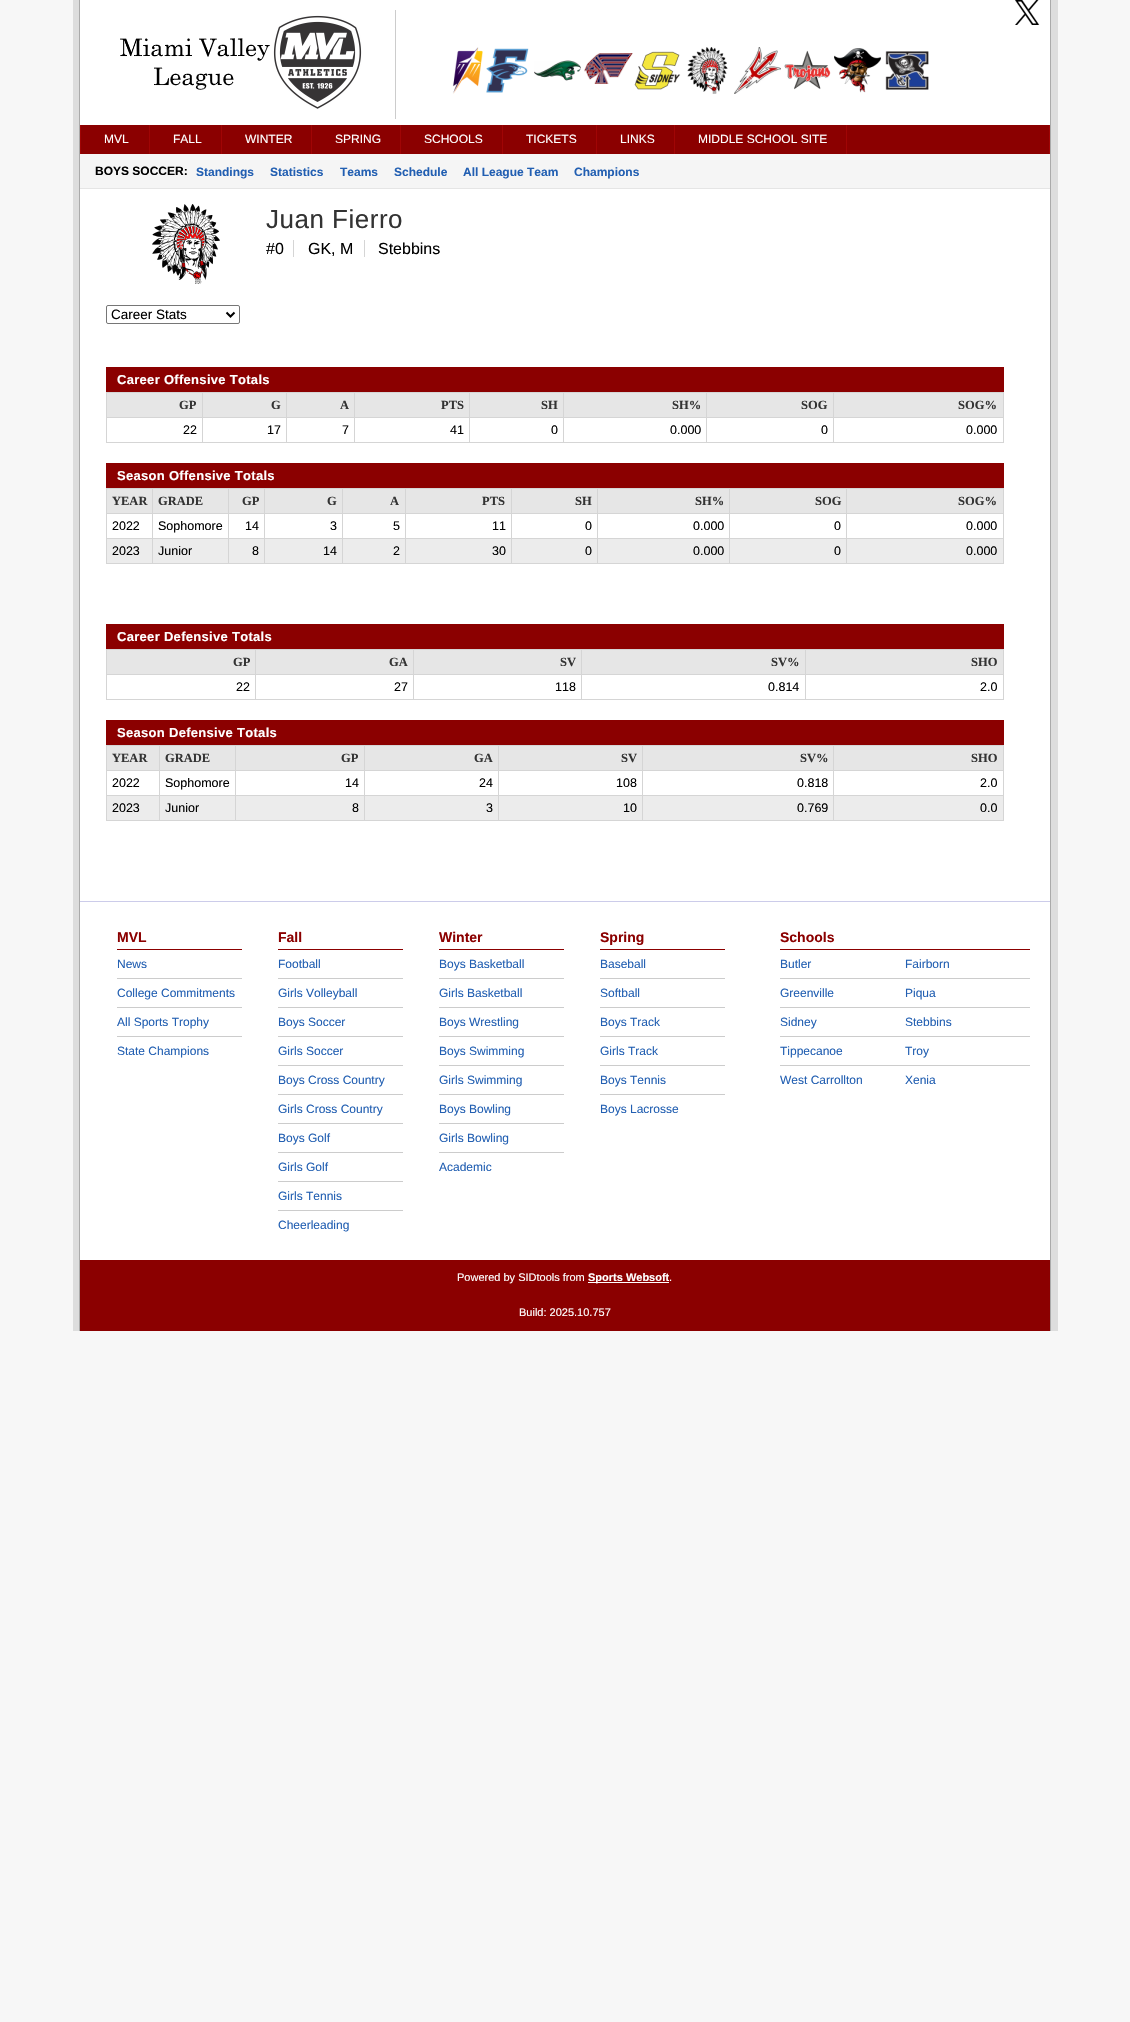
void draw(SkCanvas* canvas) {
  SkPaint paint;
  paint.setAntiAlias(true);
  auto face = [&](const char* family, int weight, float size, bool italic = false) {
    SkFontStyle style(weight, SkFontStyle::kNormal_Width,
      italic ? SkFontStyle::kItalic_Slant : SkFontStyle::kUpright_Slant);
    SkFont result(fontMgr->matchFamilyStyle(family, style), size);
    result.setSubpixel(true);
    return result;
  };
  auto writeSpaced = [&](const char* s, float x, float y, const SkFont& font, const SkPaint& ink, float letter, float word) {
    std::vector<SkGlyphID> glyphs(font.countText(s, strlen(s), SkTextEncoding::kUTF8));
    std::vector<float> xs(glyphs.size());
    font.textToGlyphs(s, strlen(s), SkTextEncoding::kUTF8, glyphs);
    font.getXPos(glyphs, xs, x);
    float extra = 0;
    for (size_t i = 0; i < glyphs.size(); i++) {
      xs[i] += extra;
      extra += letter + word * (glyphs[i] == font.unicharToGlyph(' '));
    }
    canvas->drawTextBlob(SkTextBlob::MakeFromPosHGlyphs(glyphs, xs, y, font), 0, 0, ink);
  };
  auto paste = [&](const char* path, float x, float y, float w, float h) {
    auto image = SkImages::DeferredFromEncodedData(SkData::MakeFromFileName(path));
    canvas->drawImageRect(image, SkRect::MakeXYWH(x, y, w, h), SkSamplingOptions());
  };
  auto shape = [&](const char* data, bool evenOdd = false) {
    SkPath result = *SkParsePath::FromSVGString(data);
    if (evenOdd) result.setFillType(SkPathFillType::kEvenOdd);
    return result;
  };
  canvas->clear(0xfff7f7f7);
  {
    const struct { float x, y, w, h; SkColor color; } items[] = {
      {73, 0, 985, 1331, 0xffdddddd},
      {80, 0, 970, 1260, 0xffffffff},
      {1050, 0, 1, 1331, 0xffaaaaaa},
      {79, 0, 1, 1331, 0xffaaaaaa},
    };
    for (auto [x, y, w, h, color] : items) {
      paint.setColor(color);
      canvas->drawRect(SkRect::MakeXYWH(x, y, w, h), paint);
    }
  }
  paste("img/1.png", 120, 15, 242, 94);
  paint.setColor(0xffcccccc);
  canvas->drawRect(SkRect::MakeXYWH(395, 10, 1, 109), paint);
  paste("img/2.png", 452, 47, 477, 47);
  paste("img/3.png", 1015, 0, 25, 25);
  {
    const struct { float x, y, w, h; SkColor color; } items[] = {
      {81, 125, 968, 29, 0xff8b0000},
      {80, 125, 1, 30, 0xffa00505},
      {149, 125, 1, 30, 0xffa00505},
      {221, 125, 1, 30, 0xffa00505},
      {311, 125, 1, 30, 0xffa00505},
      {400, 125, 1, 30, 0xffa00505},
      {502, 125, 1, 30, 0xffa00505},
      {596, 125, 1, 30, 0xffa00505},
      {674, 125, 1, 30, 0xffa00505},
      {1049, 125, 1, 30, 0xffa00505},
      {846, 125, 1, 30, 0xffa00505},
      {80, 154, 970, 34, 0xfff5f5f5},
      {80, 188, 970, 1, 0xffe5e5e5},
    };
    for (auto [x, y, w, h, color] : items) {
      paint.setColor(color);
      canvas->drawRect(SkRect::MakeXYWH(x, y, w, h), paint);
    }
  }
  paste("img/4.png", 152, 204, 68, 80);
  paint.setColor(0xffd5d5d5);
  canvas->drawRect(SkRect::MakeXYWH(293, 240, 1, 17), paint);
  canvas->drawRect(SkRect::MakeXYWH(364, 240, 1, 17), paint);
  paint.setStroke(true);
  paint.setStrokeWidth(1);
  paint.setColor(0xff767676);
  canvas->drawRoundRect(SkRect::MakeXYWH(106.5f, 305.5f, 133, 18), 1.5f, 1.5f, paint);
  paint.setStrokeWidth(2);
  paint.setColor(0xff000000);
  canvas->drawPath(shape("M226.5 312.5L230.5 316.5L234.5 312.5"), paint);
  paint.setStroke(false);
  {
    const struct { float x, y, w, h; SkColor color; } items[] = {
      {106, 442, 898, 1, 0xffd5d5d5},
      {106, 367, 897, 25, 0xff8b0000},
      {1003, 367, 1, 26, 0xff8b0000},
      {107, 393, 95, 24, 0xffe6e6e6},
      {833, 392, 171, 1, 0xffd5d5d5},
      {833, 417, 171, 1, 0xffd5d5d5},
      {833, 417, 1, 26, 0xffd5d5d5},
      {706, 417, 128, 1, 0xffd5d5d5},
      {833, 392, 1, 26, 0xffd5d5d5},
      {706, 392, 128, 1, 0xffd5d5d5},
      {706, 417, 1, 26, 0xffd5d5d5},
      {563, 417, 144, 1, 0xffd5d5d5},
      {706, 392, 1, 26, 0xffd5d5d5},
      {563, 392, 144, 1, 0xffd5d5d5},
      {563, 417, 1, 26, 0xffd5d5d5},
      {469, 417, 95, 1, 0xffd5d5d5},
      {563, 392, 1, 26, 0xffd5d5d5},
      {469, 392, 95, 1, 0xffd5d5d5},
      {469, 417, 1, 26, 0xffd5d5d5},
      {354, 417, 116, 1, 0xffd5d5d5},
      {469, 392, 1, 26, 0xffd5d5d5},
      {354, 392, 116, 1, 0xffd5d5d5},
      {354, 417, 1, 26, 0xffd5d5d5},
      {286, 417, 69, 1, 0xffd5d5d5},
      {354, 392, 1, 26, 0xffd5d5d5},
      {286, 392, 69, 1, 0xffd5d5d5},
      {286, 417, 1, 26, 0xffd5d5d5},
      {202, 417, 85, 1, 0xffd5d5d5},
      {286, 392, 1, 26, 0xffd5d5d5},
      {202, 392, 85, 1, 0xffd5d5d5},
      {202, 417, 1, 26, 0xffd5d5d5},
      {106, 417, 97, 1, 0xffd5d5d5},
      {202, 392, 1, 26, 0xffd5d5d5},
      {106, 392, 97, 1, 0xffd5d5d5},
      {106, 417, 1, 26, 0xffd5d5d5},
      {106, 392, 1, 26, 0xffd5d5d5},
      {203, 393, 83, 24, 0xffe6e6e6},
      {287, 393, 67, 24, 0xffe6e6e6},
      {355, 393, 114, 24, 0xffe6e6e6},
      {470, 393, 93, 24, 0xffe6e6e6},
      {564, 393, 142, 24, 0xffe6e6e6},
      {707, 393, 126, 24, 0xffe6e6e6},
      {834, 393, 169, 24, 0xffe6e6e6},
      {1003, 417, 1, 26, 0xffd5d5d5},
      {1003, 392, 1, 26, 0xffd5d5d5},
      {106, 563, 898, 1, 0xffd5d5d5},
      {106, 463, 897, 25, 0xff8b0000},
      {1003, 463, 1, 26, 0xff8b0000},
      {107, 489, 45, 24, 0xffe6e6e6},
      {846, 488, 158, 1, 0xffd5d5d5},
      {846, 513, 158, 1, 0xffd5d5d5},
      {846, 538, 158, 1, 0xffd5d5d5},
      {107, 539, 896, 24, 0xffececec},
      {846, 538, 1, 26, 0xffd5d5d5},
      {729, 538, 118, 1, 0xffd5d5d5},
      {846, 513, 1, 26, 0xffd5d5d5},
      {729, 513, 118, 1, 0xffd5d5d5},
      {846, 488, 1, 26, 0xffd5d5d5},
      {729, 488, 118, 1, 0xffd5d5d5},
      {729, 538, 1, 26, 0xffd5d5d5},
      {597, 538, 133, 1, 0xffd5d5d5},
      {729, 513, 1, 26, 0xffd5d5d5},
      {597, 513, 133, 1, 0xffd5d5d5},
      {729, 488, 1, 26, 0xffd5d5d5},
      {597, 488, 133, 1, 0xffd5d5d5},
      {597, 538, 1, 26, 0xffd5d5d5},
      {511, 538, 87, 1, 0xffd5d5d5},
      {597, 513, 1, 26, 0xffd5d5d5},
      {511, 513, 87, 1, 0xffd5d5d5},
      {597, 488, 1, 26, 0xffd5d5d5},
      {511, 488, 87, 1, 0xffd5d5d5},
      {511, 538, 1, 26, 0xffd5d5d5},
      {405, 538, 107, 1, 0xffd5d5d5},
      {511, 513, 1, 26, 0xffd5d5d5},
      {405, 513, 107, 1, 0xffd5d5d5},
      {511, 488, 1, 26, 0xffd5d5d5},
      {405, 488, 107, 1, 0xffd5d5d5},
      {405, 538, 1, 26, 0xffd5d5d5},
      {342, 538, 64, 1, 0xffd5d5d5},
      {405, 513, 1, 26, 0xffd5d5d5},
      {342, 513, 64, 1, 0xffd5d5d5},
      {405, 488, 1, 26, 0xffd5d5d5},
      {342, 488, 64, 1, 0xffd5d5d5},
      {342, 538, 1, 26, 0xffd5d5d5},
      {264, 538, 79, 1, 0xffd5d5d5},
      {342, 513, 1, 26, 0xffd5d5d5},
      {264, 513, 79, 1, 0xffd5d5d5},
      {342, 488, 1, 26, 0xffd5d5d5},
      {264, 488, 79, 1, 0xffd5d5d5},
      {264, 538, 1, 26, 0xffd5d5d5},
      {228, 538, 37, 1, 0xffd5d5d5},
      {264, 513, 1, 26, 0xffd5d5d5},
      {228, 513, 37, 1, 0xffd5d5d5},
      {264, 488, 1, 26, 0xffd5d5d5},
      {228, 488, 37, 1, 0xffd5d5d5},
      {228, 538, 1, 26, 0xffd5d5d5},
      {152, 538, 77, 1, 0xffd5d5d5},
      {228, 513, 1, 26, 0xffd5d5d5},
      {152, 513, 77, 1, 0xffd5d5d5},
      {228, 488, 1, 26, 0xffd5d5d5},
      {152, 488, 77, 1, 0xffd5d5d5},
      {152, 538, 1, 26, 0xffd5d5d5},
      {106, 538, 47, 1, 0xffd5d5d5},
      {152, 513, 1, 26, 0xffd5d5d5},
      {106, 513, 47, 1, 0xffd5d5d5},
      {152, 488, 1, 26, 0xffd5d5d5},
      {106, 488, 47, 1, 0xffd5d5d5},
      {106, 538, 1, 26, 0xffd5d5d5},
      {106, 513, 1, 26, 0xffd5d5d5},
      {106, 488, 1, 26, 0xffd5d5d5},
      {153, 489, 75, 24, 0xffe6e6e6},
      {229, 489, 35, 24, 0xffe6e6e6},
      {265, 489, 77, 24, 0xffe6e6e6},
      {343, 489, 62, 24, 0xffe6e6e6},
      {406, 489, 105, 24, 0xffe6e6e6},
      {512, 489, 85, 24, 0xffe6e6e6},
      {598, 489, 131, 24, 0xffe6e6e6},
      {730, 489, 116, 24, 0xffe6e6e6},
      {847, 489, 156, 24, 0xffe6e6e6},
      {1003, 538, 1, 26, 0xffd5d5d5},
      {1003, 513, 1, 26, 0xffd5d5d5},
      {1003, 488, 1, 26, 0xffd5d5d5},
      {106, 699, 898, 1, 0xffd5d5d5},
      {106, 624, 897, 25, 0xff8b0000},
      {1003, 624, 1, 26, 0xff8b0000},
      {107, 650, 148, 24, 0xffe6e6e6},
      {805, 649, 199, 1, 0xffd5d5d5},
      {805, 674, 199, 1, 0xffd5d5d5},
      {805, 674, 1, 26, 0xffd5d5d5},
      {581, 674, 225, 1, 0xffd5d5d5},
      {805, 649, 1, 26, 0xffd5d5d5},
      {581, 649, 225, 1, 0xffd5d5d5},
      {581, 674, 1, 26, 0xffd5d5d5},
      {413, 674, 169, 1, 0xffd5d5d5},
      {581, 649, 1, 26, 0xffd5d5d5},
      {413, 649, 169, 1, 0xffd5d5d5},
      {413, 674, 1, 26, 0xffd5d5d5},
      {255, 674, 159, 1, 0xffd5d5d5},
      {413, 649, 1, 26, 0xffd5d5d5},
      {255, 649, 159, 1, 0xffd5d5d5},
      {255, 674, 1, 26, 0xffd5d5d5},
      {106, 674, 150, 1, 0xffd5d5d5},
      {255, 649, 1, 26, 0xffd5d5d5},
      {106, 649, 150, 1, 0xffd5d5d5},
      {106, 674, 1, 26, 0xffd5d5d5},
      {106, 649, 1, 26, 0xffd5d5d5},
      {256, 650, 157, 24, 0xffe6e6e6},
      {414, 650, 167, 24, 0xffe6e6e6},
      {582, 650, 223, 24, 0xffe6e6e6},
      {806, 650, 197, 24, 0xffe6e6e6},
      {1003, 674, 1, 26, 0xffd5d5d5},
      {1003, 649, 1, 26, 0xffd5d5d5},
      {106, 820, 898, 1, 0xffd5d5d5},
      {106, 720, 897, 25, 0xff8b0000},
      {1003, 720, 1, 26, 0xff8b0000},
      {107, 746, 52, 24, 0xffe6e6e6},
      {833, 745, 171, 1, 0xffd5d5d5},
      {833, 770, 171, 1, 0xffd5d5d5},
      {833, 795, 171, 1, 0xffd5d5d5},
      {107, 796, 896, 24, 0xffececec},
      {833, 795, 1, 26, 0xffd5d5d5},
      {642, 795, 192, 1, 0xffd5d5d5},
      {833, 770, 1, 26, 0xffd5d5d5},
      {642, 770, 192, 1, 0xffd5d5d5},
      {833, 745, 1, 26, 0xffd5d5d5},
      {642, 745, 192, 1, 0xffd5d5d5},
      {642, 795, 1, 26, 0xffd5d5d5},
      {498, 795, 145, 1, 0xffd5d5d5},
      {642, 770, 1, 26, 0xffd5d5d5},
      {498, 770, 145, 1, 0xffd5d5d5},
      {642, 745, 1, 26, 0xffd5d5d5},
      {498, 745, 145, 1, 0xffd5d5d5},
      {498, 795, 1, 26, 0xffd5d5d5},
      {364, 795, 135, 1, 0xffd5d5d5},
      {498, 770, 1, 26, 0xffd5d5d5},
      {364, 770, 135, 1, 0xffd5d5d5},
      {498, 745, 1, 26, 0xffd5d5d5},
      {364, 745, 135, 1, 0xffd5d5d5},
      {364, 795, 1, 26, 0xffd5d5d5},
      {235, 795, 130, 1, 0xffd5d5d5},
      {364, 770, 1, 26, 0xffd5d5d5},
      {235, 770, 130, 1, 0xffd5d5d5},
      {364, 745, 1, 26, 0xffd5d5d5},
      {235, 745, 130, 1, 0xffd5d5d5},
      {235, 795, 1, 26, 0xffd5d5d5},
      {159, 795, 77, 1, 0xffd5d5d5},
      {235, 770, 1, 26, 0xffd5d5d5},
      {159, 770, 77, 1, 0xffd5d5d5},
      {235, 745, 1, 26, 0xffd5d5d5},
      {159, 745, 77, 1, 0xffd5d5d5},
      {159, 795, 1, 26, 0xffd5d5d5},
      {106, 795, 54, 1, 0xffd5d5d5},
      {159, 770, 1, 26, 0xffd5d5d5},
      {106, 770, 54, 1, 0xffd5d5d5},
      {159, 745, 1, 26, 0xffd5d5d5},
      {106, 745, 54, 1, 0xffd5d5d5},
      {106, 795, 1, 26, 0xffd5d5d5},
      {106, 770, 1, 26, 0xffd5d5d5},
      {106, 745, 1, 26, 0xffd5d5d5},
      {160, 746, 75, 24, 0xffe6e6e6},
      {236, 746, 128, 24, 0xffe6e6e6},
      {365, 746, 133, 24, 0xffe6e6e6},
      {499, 746, 143, 24, 0xffe6e6e6},
      {643, 746, 190, 24, 0xffe6e6e6},
      {834, 746, 169, 24, 0xffe6e6e6},
      {1003, 795, 1, 26, 0xffd5d5d5},
      {1003, 770, 1, 26, 0xffd5d5d5},
      {1003, 745, 1, 26, 0xffd5d5d5},
      {80, 901, 970, 1, 0xffccccea},
      {117, 949, 125, 1, 0xff8b0000},
      {117, 978, 125, 1, 0xffcccccc},
      {117, 1007, 125, 1, 0xffcccccc},
      {117, 1036, 125, 1, 0xffcccccc},
      {278, 949, 125, 1, 0xff8b0000},
      {278, 978, 125, 1, 0xffcccccc},
      {278, 1007, 125, 1, 0xffcccccc},
      {278, 1036, 125, 1, 0xffcccccc},
      {278, 1065, 125, 1, 0xffcccccc},
      {278, 1094, 125, 1, 0xffcccccc},
      {278, 1123, 125, 1, 0xffcccccc},
      {278, 1152, 125, 1, 0xffcccccc},
      {278, 1181, 125, 1, 0xffcccccc},
      {278, 1210, 125, 1, 0xffcccccc},
      {439, 949, 125, 1, 0xff8b0000},
      {439, 978, 125, 1, 0xffcccccc},
      {439, 1007, 125, 1, 0xffcccccc},
      {439, 1036, 125, 1, 0xffcccccc},
      {439, 1065, 125, 1, 0xffcccccc},
      {439, 1094, 125, 1, 0xffcccccc},
      {439, 1123, 125, 1, 0xffcccccc},
      {439, 1152, 125, 1, 0xffcccccc},
      {600, 949, 125, 1, 0xff8b0000},
      {600, 978, 125, 1, 0xffcccccc},
      {600, 1007, 125, 1, 0xffcccccc},
      {600, 1036, 125, 1, 0xffcccccc},
      {600, 1065, 125, 1, 0xffcccccc},
      {600, 1094, 125, 1, 0xffcccccc},
      {780, 949, 250, 1, 0xff8b0000},
      {780, 978, 250, 1, 0xffcccccc},
      {780, 1007, 250, 1, 0xffcccccc},
      {780, 1036, 250, 1, 0xffcccccc},
      {780, 1065, 250, 1, 0xffcccccc},
      {80, 1260, 970, 71, 0xff8b0000},
      {588, 1282, 81, 1, 0xffffffff},
    };
    for (auto [x, y, w, h, color] : items) {
      paint.setColor(color);
      canvas->drawRect(SkRect::MakeXYWH(x, y, w, h), paint);
    }
  }
  auto f0 = face("Liberation Sans", 400, 12);
  {
    const struct { const char* s; float x, y; } items[] = {
      {"MVL", 104, 143},
      {"FALL", 173, 143},
      {"WINTER", 245, 143},
      {"SPRING", 335, 143},
      {"SCHOOLS", 424, 143},
      {"TICKETS", 526, 143},
      {"LINKS", 620, 143},
      {"MIDDLE SCHOOL SITE", 698, 143},
    };
    for (auto [s, x, y] : items) {
      canvas->drawString(s, x, y, f0, paint);
    }
  }
  auto f1 = face("Liberation Sans", 700, 12);
  paint.setColor(0xff000000);
  canvas->drawString("BOYS SOCCER:", 95, 175, f1, paint);
  paint.setColor(0xff225fb2);
  {
    const struct { const char* s; float x, y; } items[] = {
      {"Standings", 196, 176},
      {"Statistics", 270, 176},
      {"Teams", 340, 176},
      {"Schedule", 394, 176},
      {"All League Team", 463, 176},
      {"Champions", 574, 176},
    };
    for (auto [s, x, y] : items) {
      canvas->drawString(s, x, y, f1, paint);
    }
  }
  auto f2 = face("Liberation Sans", 400, 26);
  paint.setColor(0xff333333);
  writeSpaced("Juan Fierro", 266, 228, f2, paint, 0.5f, 0);
  auto f3 = face("Liberation Sans", 400, 16);
  paint.setColor(0xff000000);
  {
    const struct { const char* s; float x, y; } items[] = {
      {"#0", 266, 254},
      {"GK, M", 308, 254},
      {"Stebbins", 378, 254},
    };
    for (auto [s, x, y] : items) {
      canvas->drawString(s, x, y, f3, paint);
    }
  }
  auto f4 = face("Liberation Sans", 400, 13.5f);
  canvas->drawString("Career Stats", 111, 319, f4, paint);
  auto f5 = face("Liberation Sans", 700, 13);
  paint.setColor(0xffffffff);
  writeSpaced("Career Offensive Totals", 117, 384, f5, paint, 0.3f, 0);
  auto f6 = face("Liberation Serif", 700, 12.5f);
  paint.setColor(0xff333333);
  {
    const struct { const char* s; float x, y; } items[] = {
      {"GP", 179, 409},
      {"G", 271, 409},
      {"A", 340, 409},
      {"PTS", 441, 409},
      {"SH", 541, 409},
      {"SH%", 672, 409},
      {"SOG", 801, 409},
      {"SOG%", 958, 409},
    };
    for (auto [s, x, y] : items) {
      canvas->drawString(s, x, y, f6, paint);
    }
  }
  auto f7 = face("Liberation Sans", 400, 12.5f);
  paint.setColor(0xff000000);
  {
    const struct { const char* s; float x, y; } items[] = {
      {"22", 183, 434},
      {"17", 267, 434},
      {"7", 342, 434},
      {"41", 450, 434},
      {"0", 551, 434},
      {"0.000", 670, 434},
      {"0", 821, 434},
      {"0.000", 966, 434},
    };
    for (auto [s, x, y] : items) {
      canvas->drawString(s, x, y, f7, paint);
    }
  }
  paint.setColor(0xffffffff);
  writeSpaced("Season Offensive Totals", 117, 480, f5, paint, 0.3f, 0);
  paint.setColor(0xff333333);
  {
    const struct { const char* s; float x, y; } items[] = {
      {"YEAR", 112, 505},
      {"GRADE", 158, 505},
      {"GP", 242, 505},
      {"G", 327, 505},
      {"A", 390, 505},
      {"PTS", 482, 505},
      {"SH", 575, 505},
      {"SH%", 695, 505},
      {"SOG", 815, 505},
      {"SOG%", 958, 505},
    };
    for (auto [s, x, y] : items) {
      canvas->drawString(s, x, y, f6, paint);
    }
  }
  paint.setColor(0xff000000);
  {
    const struct { const char* s; float x, y; } items[] = {
      {"2022", 112, 530},
      {"Sophomore", 158, 530},
      {"14", 245, 530},
      {"3", 330, 530},
      {"5", 393, 530},
      {"11", 492, 530},
      {"0", 585, 530},
      {"0.000", 693, 530},
      {"0", 834, 530},
      {"0.000", 966, 530},
      {"2023", 112, 555},
      {"Junior", 158, 555},
      {"8", 252, 555},
      {"14", 323, 555},
      {"2", 393, 555},
      {"30", 492, 555},
      {"0", 585, 555},
      {"0.000", 693, 555},
      {"0", 834, 555},
      {"0.000", 966, 555},
    };
    for (auto [s, x, y] : items) {
      canvas->drawString(s, x, y, f7, paint);
    }
  }
  paint.setColor(0xffffffff);
  writeSpaced("Career Defensive Totals", 117, 641, f5, paint, 0.3f, 0);
  paint.setColor(0xff333333);
  {
    const struct { const char* s; float x, y; } items[] = {
      {"GP", 233, 666},
      {"GA", 389, 666},
      {"SV", 560, 666},
      {"SV%", 771, 666},
      {"SHO", 971, 666},
    };
    for (auto [s, x, y] : items) {
      canvas->drawString(s, x, y, f6, paint);
    }
  }
  paint.setColor(0xff000000);
  {
    const struct { const char* s; float x, y; } items[] = {
      {"22", 236, 691},
      {"27", 394, 691},
      {"118", 555, 691},
      {"0.814", 768, 691},
      {"2.0", 980, 691},
    };
    for (auto [s, x, y] : items) {
      canvas->drawString(s, x, y, f7, paint);
    }
  }
  paint.setColor(0xffffffff);
  writeSpaced("Season Defensive Totals", 117, 737, f5, paint, 0.3f, 0);
  paint.setColor(0xff333333);
  {
    const struct { const char* s; float x, y; } items[] = {
      {"YEAR", 112, 762},
      {"GRADE", 165, 762},
      {"GP", 341, 762},
      {"GA", 474, 762},
      {"SV", 621, 762},
      {"SV%", 800, 762},
      {"SHO", 971, 762},
    };
    for (auto [s, x, y] : items) {
      canvas->drawString(s, x, y, f6, paint);
    }
  }
  paint.setColor(0xff000000);
  {
    const struct { const char* s; float x, y; } items[] = {
      {"2022", 112, 787},
      {"Sophomore", 165, 787},
      {"14", 345, 787},
      {"24", 479, 787},
      {"108", 616, 787},
      {"0.818", 797, 787},
      {"2.0", 980, 787},
      {"2023", 112, 812},
      {"Junior", 165, 812},
      {"8", 352, 812},
      {"3", 486, 812},
      {"10", 623, 812},
      {"0.769", 797, 812},
      {"0.0", 980, 812},
    };
    for (auto [s, x, y] : items) {
      canvas->drawString(s, x, y, f7, paint);
    }
  }
  auto f8 = face("Liberation Sans", 700, 14);
  paint.setColor(0xff8b0000);
  canvas->drawString("MVL", 117, 942, f8, paint);
  paint.setColor(0xff225fb2);
  {
    const struct { const char* s; float x, y; } items[] = {
      {"News", 117, 968},
      {"College Commitments", 117, 997},
      {"All Sports Trophy", 117, 1026},
      {"State Champions", 117, 1055},
    };
    for (auto [s, x, y] : items) {
      canvas->drawString(s, x, y, f0, paint);
    }
  }
  paint.setColor(0xff8b0000);
  canvas->drawString("Fall", 278, 942, f8, paint);
  paint.setColor(0xff225fb2);
  {
    const struct { const char* s; float x, y; } items[] = {
      {"Football", 278, 968},
      {"Girls Volleyball", 278, 997},
      {"Boys Soccer", 278, 1026},
      {"Girls Soccer", 278, 1055},
      {"Boys Cross Country", 278, 1084},
      {"Girls Cross Country", 278, 1113},
      {"Boys Golf", 278, 1142},
      {"Girls Golf", 278, 1171},
      {"Girls Tennis", 278, 1200},
      {"Cheerleading", 278, 1229},
    };
    for (auto [s, x, y] : items) {
      canvas->drawString(s, x, y, f0, paint);
    }
  }
  paint.setColor(0xff8b0000);
  canvas->drawString("Winter", 439, 942, f8, paint);
  paint.setColor(0xff225fb2);
  {
    const struct { const char* s; float x, y; } items[] = {
      {"Boys Basketball", 439, 968},
      {"Girls Basketball", 439, 997},
      {"Boys Wrestling", 439, 1026},
      {"Boys Swimming", 439, 1055},
      {"Girls Swimming", 439, 1084},
      {"Boys Bowling", 439, 1113},
      {"Girls Bowling", 439, 1142},
      {"Academic", 439, 1171},
    };
    for (auto [s, x, y] : items) {
      canvas->drawString(s, x, y, f0, paint);
    }
  }
  paint.setColor(0xff8b0000);
  canvas->drawString("Spring", 600, 942, f8, paint);
  paint.setColor(0xff225fb2);
  {
    const struct { const char* s; float x, y; } items[] = {
      {"Baseball", 600, 968},
      {"Softball", 600, 997},
      {"Boys Track", 600, 1026},
      {"Girls Track", 600, 1055},
      {"Boys Tennis", 600, 1084},
      {"Boys Lacrosse", 600, 1113},
    };
    for (auto [s, x, y] : items) {
      canvas->drawString(s, x, y, f0, paint);
    }
  }
  paint.setColor(0xff8b0000);
  canvas->drawString("Schools", 780, 942, f8, paint);
  paint.setColor(0xff225fb2);
  {
    const struct { const char* s; float x, y; } items[] = {
      {"Butler", 780, 968},
      {"Greenville", 780, 997},
      {"Sidney", 780, 1026},
      {"Tippecanoe", 780, 1055},
      {"West Carrollton", 780, 1084},
      {"Fairborn", 905, 968},
      {"Piqua", 905, 997},
      {"Stebbins", 905, 1026},
      {"Troy", 905, 1055},
      {"Xenia", 905, 1084},
    };
    for (auto [s, x, y] : items) {
      canvas->drawString(s, x, y, f0, paint);
    }
  }
  auto f9 = face("Liberation Sans", 400, 11);
  paint.setColor(0xffffffff);
  canvas->drawString("Powered by SIDtools from", 457, 1281, f9, paint);
  auto f10 = face("Liberation Sans", 700, 11);
  canvas->drawString("Sports Websoft", 588, 1281, f10, paint);
  canvas->drawString(".", 669, 1281, f9, paint);
  canvas->drawString("Build: 2025.10.757", 519, 1316, f9, paint);
}
